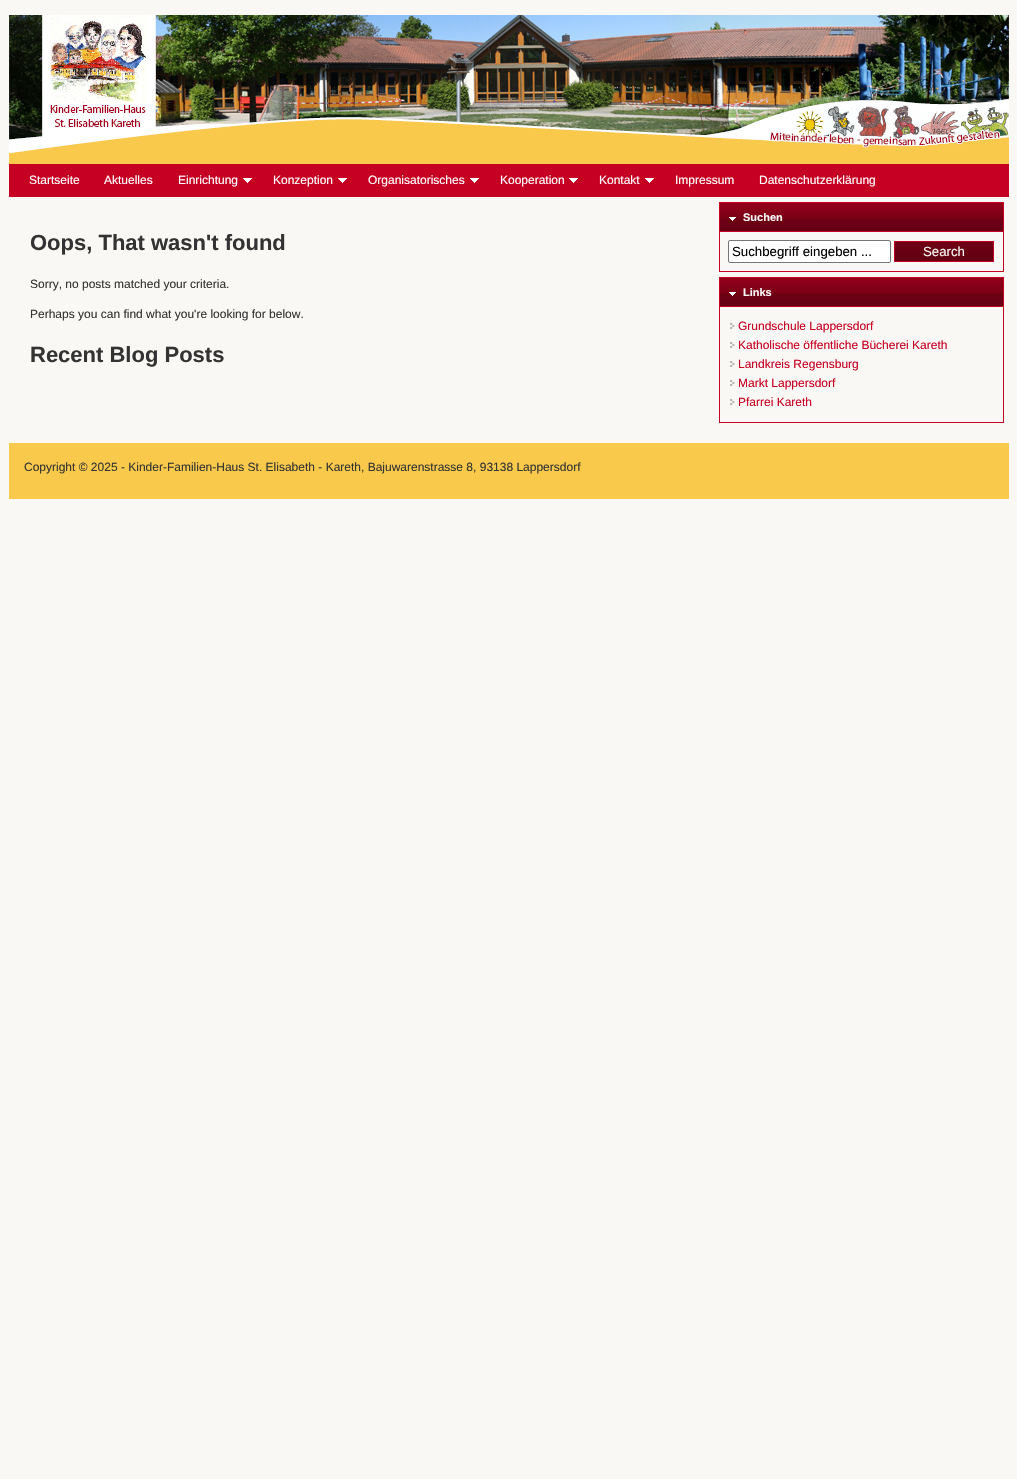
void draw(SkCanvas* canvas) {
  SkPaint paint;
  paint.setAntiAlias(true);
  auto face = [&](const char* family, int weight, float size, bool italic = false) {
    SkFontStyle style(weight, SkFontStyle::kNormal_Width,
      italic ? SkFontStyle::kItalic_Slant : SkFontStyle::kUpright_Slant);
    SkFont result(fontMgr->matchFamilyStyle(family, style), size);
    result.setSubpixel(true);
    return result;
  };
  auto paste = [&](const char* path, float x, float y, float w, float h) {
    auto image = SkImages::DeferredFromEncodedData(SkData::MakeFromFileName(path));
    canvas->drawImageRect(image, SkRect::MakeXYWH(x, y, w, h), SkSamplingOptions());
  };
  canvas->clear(0xfff9f8f4);
  paint.setColor(0xfff9c94c);
  canvas->drawRect(SkRect::MakeXYWH(9, 157, 1000, 7), paint);
  paste("img/1.png", 9, 15, 1000, 142);
  paint.setColor(0xffc60023);
  canvas->drawRect(SkRect::MakeXYWH(9, 164, 1000, 33), paint);
  paste("img/2.png", 243, 178, 9, 5);
  paste("img/2.png", 338, 178, 9, 5);
  paste("img/2.png", 470, 178, 9, 5);
  paste("img/2.png", 569, 178, 9, 5);
  paste("img/2.png", 645, 178, 9, 5);
  paint.setStroke(true);
  paint.setStrokeWidth(1);
  canvas->drawRect(SkRect::MakeXYWH(719.5f, 202.5f, 284, 69), paint);
  paint.setStroke(false);
  canvas->drawRect(SkRect::MakeXYWH(720, 203, 283, 29), paint);
  paste("img/3.png", 720, 203, 283, 28);
  paint.setColor(0xffffffff);
  canvas->drawRoundRect(SkRect::MakeXYWH(728.5f, 240.5f, 162, 22), 1.5f, 1.5f, paint);
  paint.setStroke(true);
  paint.setColor(0xff767676);
  canvas->drawRoundRect(SkRect::MakeXYWH(728.5f, 240.5f, 162, 22), 1.5f, 1.5f, paint);
  paint.setStroke(false);
  paint.setColor(0xffc60023);
  canvas->drawRect(SkRect::MakeXYWH(895, 242, 98, 19), paint);
  paste("img/4.png", 895, 242, 98, 19);
  paint.setStroke(true);
  canvas->drawRect(SkRect::MakeXYWH(894.5f, 241.5f, 99, 20), paint);
  canvas->drawRect(SkRect::MakeXYWH(719.5f, 277.5f, 284, 145), paint);
  paint.setStroke(false);
  canvas->drawRect(SkRect::MakeXYWH(720, 278, 283, 29), paint);
  paste("img/3.png", 720, 278, 283, 28);
  paste("img/5.png", 730, 323, 5, 6);
  paste("img/5.png", 730, 342, 5, 6);
  paste("img/5.png", 730, 361, 5, 6);
  paste("img/5.png", 730, 380, 5, 6);
  paste("img/5.png", 730, 399, 5, 6);
  paint.setColor(0xfff9c94c);
  canvas->drawRect(SkRect::MakeXYWH(9, 443, 1000, 56), paint);
  auto f0 = face("Liberation Sans", 400, 12);
  paint.setColor(0xffffffff);
  {
    const struct { const char* s; float x, y; } items[] = {
      {"Startseite", 29, 184},
      {"Aktuelles", 104, 184},
      {"Einrichtung", 178, 184},
      {"Konzeption", 273, 184},
      {"Organisatorisches", 368, 184},
      {"Kooperation", 500, 184},
      {"Kontakt", 599, 184},
      {"Impressum", 675, 184},
      {"Datenschutzerklärung", 759, 184},
    };
    for (auto [s, x, y] : items) {
      canvas->drawString(s, x, y, f0, paint);
    }
  }
  auto f1 = face("Liberation Sans", 700, 22);
  paint.setColor(0xff333333);
  canvas->drawString("Oops, That wasn't found", 30, 250, f1, paint);
  canvas->drawString("Sorry, no posts matched your criteria.", 30, 288, f0, paint);
  canvas->drawString("Perhaps you can find what you're looking for below.", 30, 318, f0, paint);
  canvas->drawString("Recent Blog Posts", 30, 362, f1, paint);
  auto f2 = face("Liberation Sans", 700, 11);
  paint.setColor(0xfff9f8f4);
  canvas->drawString("Suchen", 743, 221, f2, paint);
  auto f3 = face("Liberation Sans", 400, 13.25f);
  paint.setColor(0xff000000);
  canvas->drawString("Suchbegriff eingeben ...", 732, 256, f3, paint);
  paint.setColor(0xfff9f8f4);
  canvas->drawString("Search", 923, 256, f3, paint);
  canvas->drawString("Links", 743, 296, f2, paint);
  paint.setColor(0xffc60023);
  {
    const struct { const char* s; float x, y; } items[] = {
      {"Grundschule Lappersdorf", 738, 330},
      {"Katholische öffentliche Bücherei Kareth", 738, 349},
      {"Landkreis Regensburg", 738, 368},
      {"Markt Lappersdorf", 738, 387},
      {"Pfarrei Kareth", 738, 406},
    };
    for (auto [s, x, y] : items) {
      canvas->drawString(s, x, y, f0, paint);
    }
  }
  paint.setColor(0xff333333);
  canvas->drawString("Copyright © 2025 - Kinder-Familien-Haus St. Elisabeth - Kareth, Bajuwarenstrasse 8, 93138 Lappersdorf", 24, 471, f0, paint);
}
